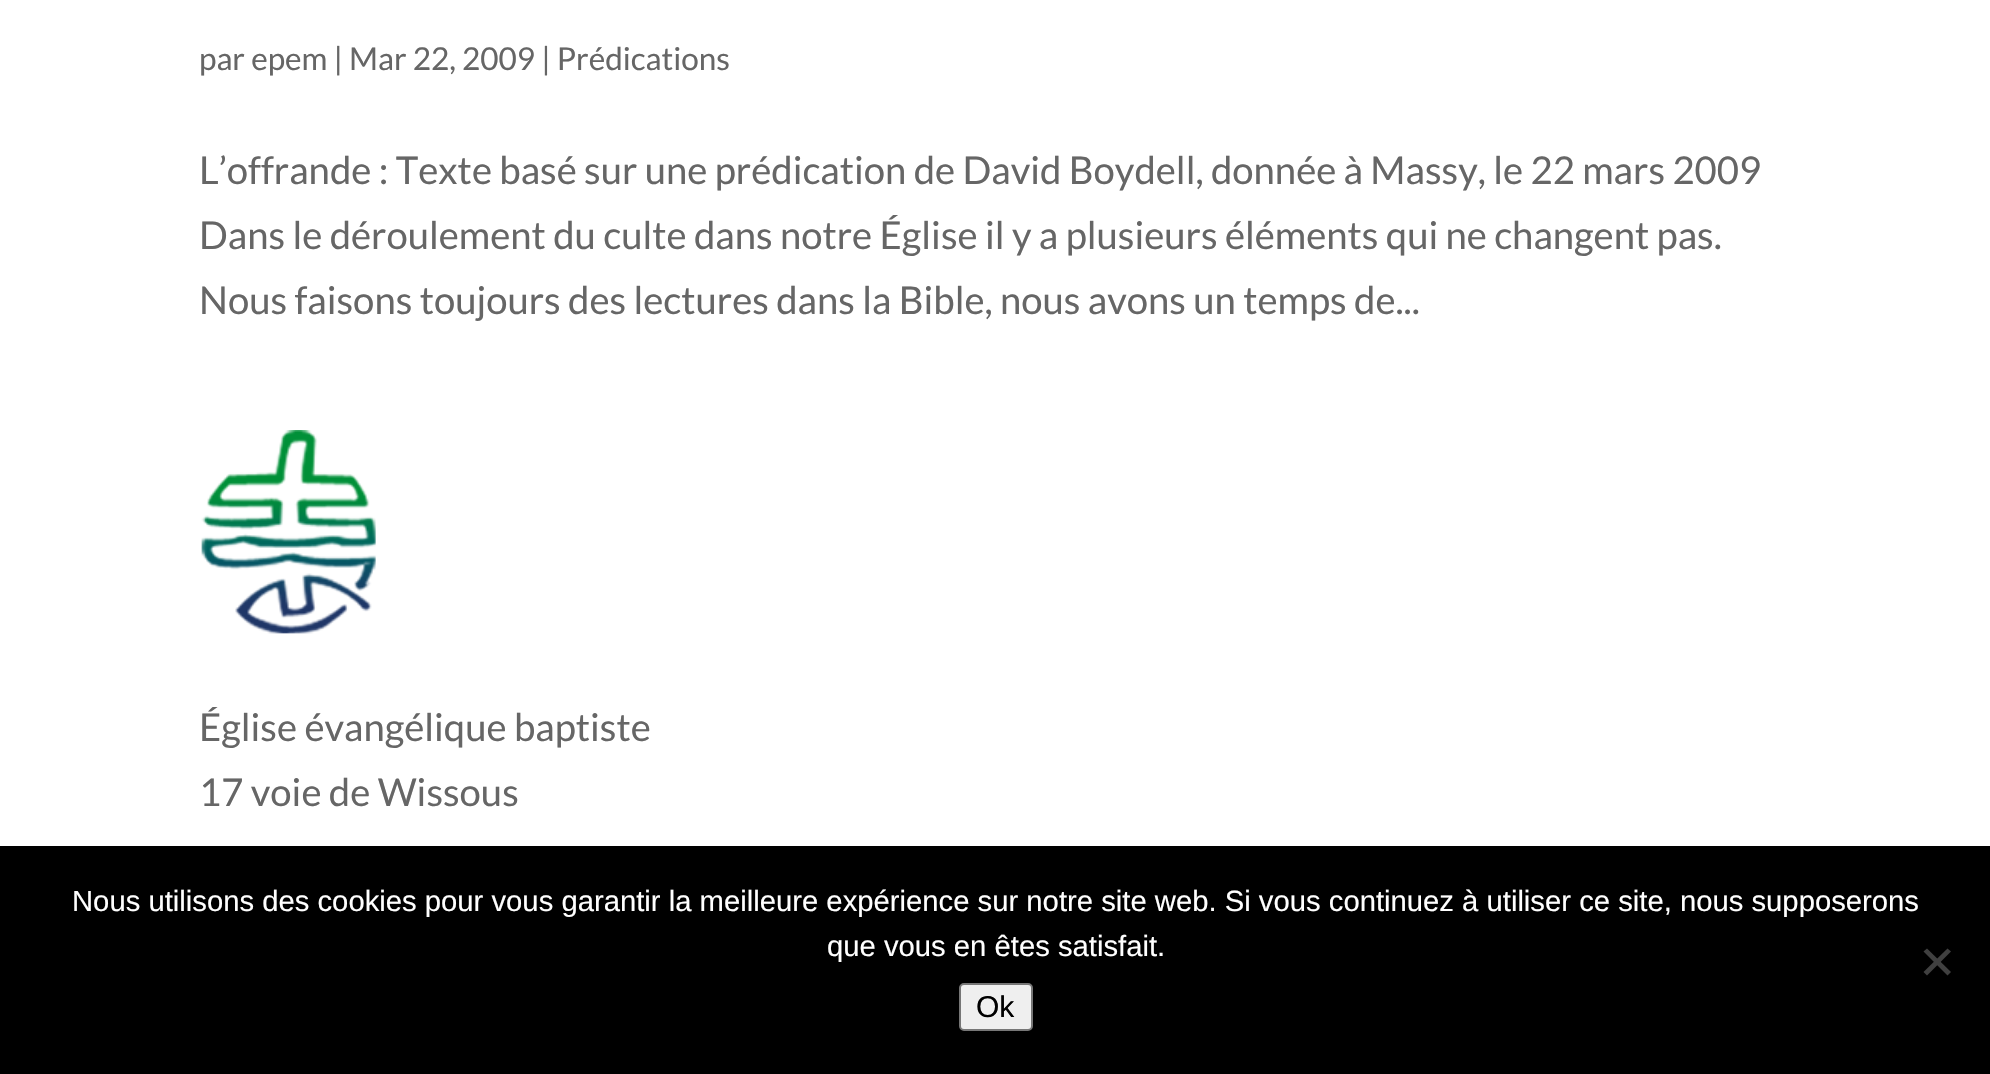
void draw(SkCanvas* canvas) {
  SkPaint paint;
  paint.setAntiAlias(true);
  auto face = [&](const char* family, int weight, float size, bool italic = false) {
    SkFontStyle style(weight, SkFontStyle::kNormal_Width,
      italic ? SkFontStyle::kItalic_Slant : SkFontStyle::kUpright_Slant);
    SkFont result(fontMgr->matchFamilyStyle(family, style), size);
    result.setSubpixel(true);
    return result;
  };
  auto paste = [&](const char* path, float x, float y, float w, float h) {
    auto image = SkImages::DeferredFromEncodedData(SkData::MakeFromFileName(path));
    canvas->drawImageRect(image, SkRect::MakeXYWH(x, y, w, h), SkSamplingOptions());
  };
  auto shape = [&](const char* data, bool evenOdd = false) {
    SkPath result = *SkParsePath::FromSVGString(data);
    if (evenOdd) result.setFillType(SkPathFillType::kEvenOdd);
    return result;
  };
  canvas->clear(0xffffffff);
  paste("img/1.png", 201, 430, 175, 204);
  paint.setColor(0xff000000);
  canvas->drawRect(SkRect::MakeXYWH(0, 846, 1990, 228), paint);
  paint.setColor(0xff404040);
  canvas->drawPath(shape("M1947.5 948.5L1951 951.5L1927 975.5L1923.5 972Z"), paint);
  canvas->drawPath(shape("M1923.5 951.5L1927 948.5L1951 972L1947.5 975.5Z"), paint);
  paint.setColor(0xffefefef);
  canvas->drawRoundRect(SkRect::MakeXYWH(960, 984, 72, 46), 4, 4, paint);
  paint.setStroke(true);
  paint.setStrokeWidth(2);
  paint.setColor(0xff767676);
  canvas->drawRoundRect(SkRect::MakeXYWH(960, 984, 72, 46), 4, 4, paint);
  auto f0 = face("Lato", 400, 31.5f);
  paint.setStroke(false);
  paint.setColor(0xff666666);
  canvas->drawString("par epem | Mar 22, 2009 | Prédications", 199, 70, f0, paint);
  auto f1 = face("Lato", 400, 38.25f);
  {
    const struct { const char* s; float x, y; } items[] = {
      {"L’offrande : Texte basé sur une prédication de David Boydell, donnée à Massy, le 22 mars 2009", 199, 184},
      {"Dans le déroulement du culte dans notre Église il y a plusieurs éléments qui ne changent pas.", 199, 249},
      {"Nous faisons toujours des lectures dans la Bible, nous avons un temps de...", 199, 314},
      {"Église évangélique baptiste", 199, 741},
      {"17 voie de Wissous", 199, 806},
    };
    for (auto [s, x, y] : items) {
      canvas->drawString(s, x, y, f1, paint);
    }
  }
  auto f2 = face("Liberation Sans", 400, 29.25f);
  paint.setColor(0xffffffff);
  canvas->drawString("Nous utilisons des cookies pour vous garantir la meilleure expérience sur notre site web. Si vous continuez à utiliser ce site, nous supposerons", 72, 911, f2, paint);
  canvas->drawString("que vous en êtes satisfait.", 827, 956, f2, paint);
  auto f3 = face("Liberation Sans", 400, 30);
  paint.setColor(0xff000000);
  canvas->drawString("Ok", 976, 1017, f3, paint);
}
